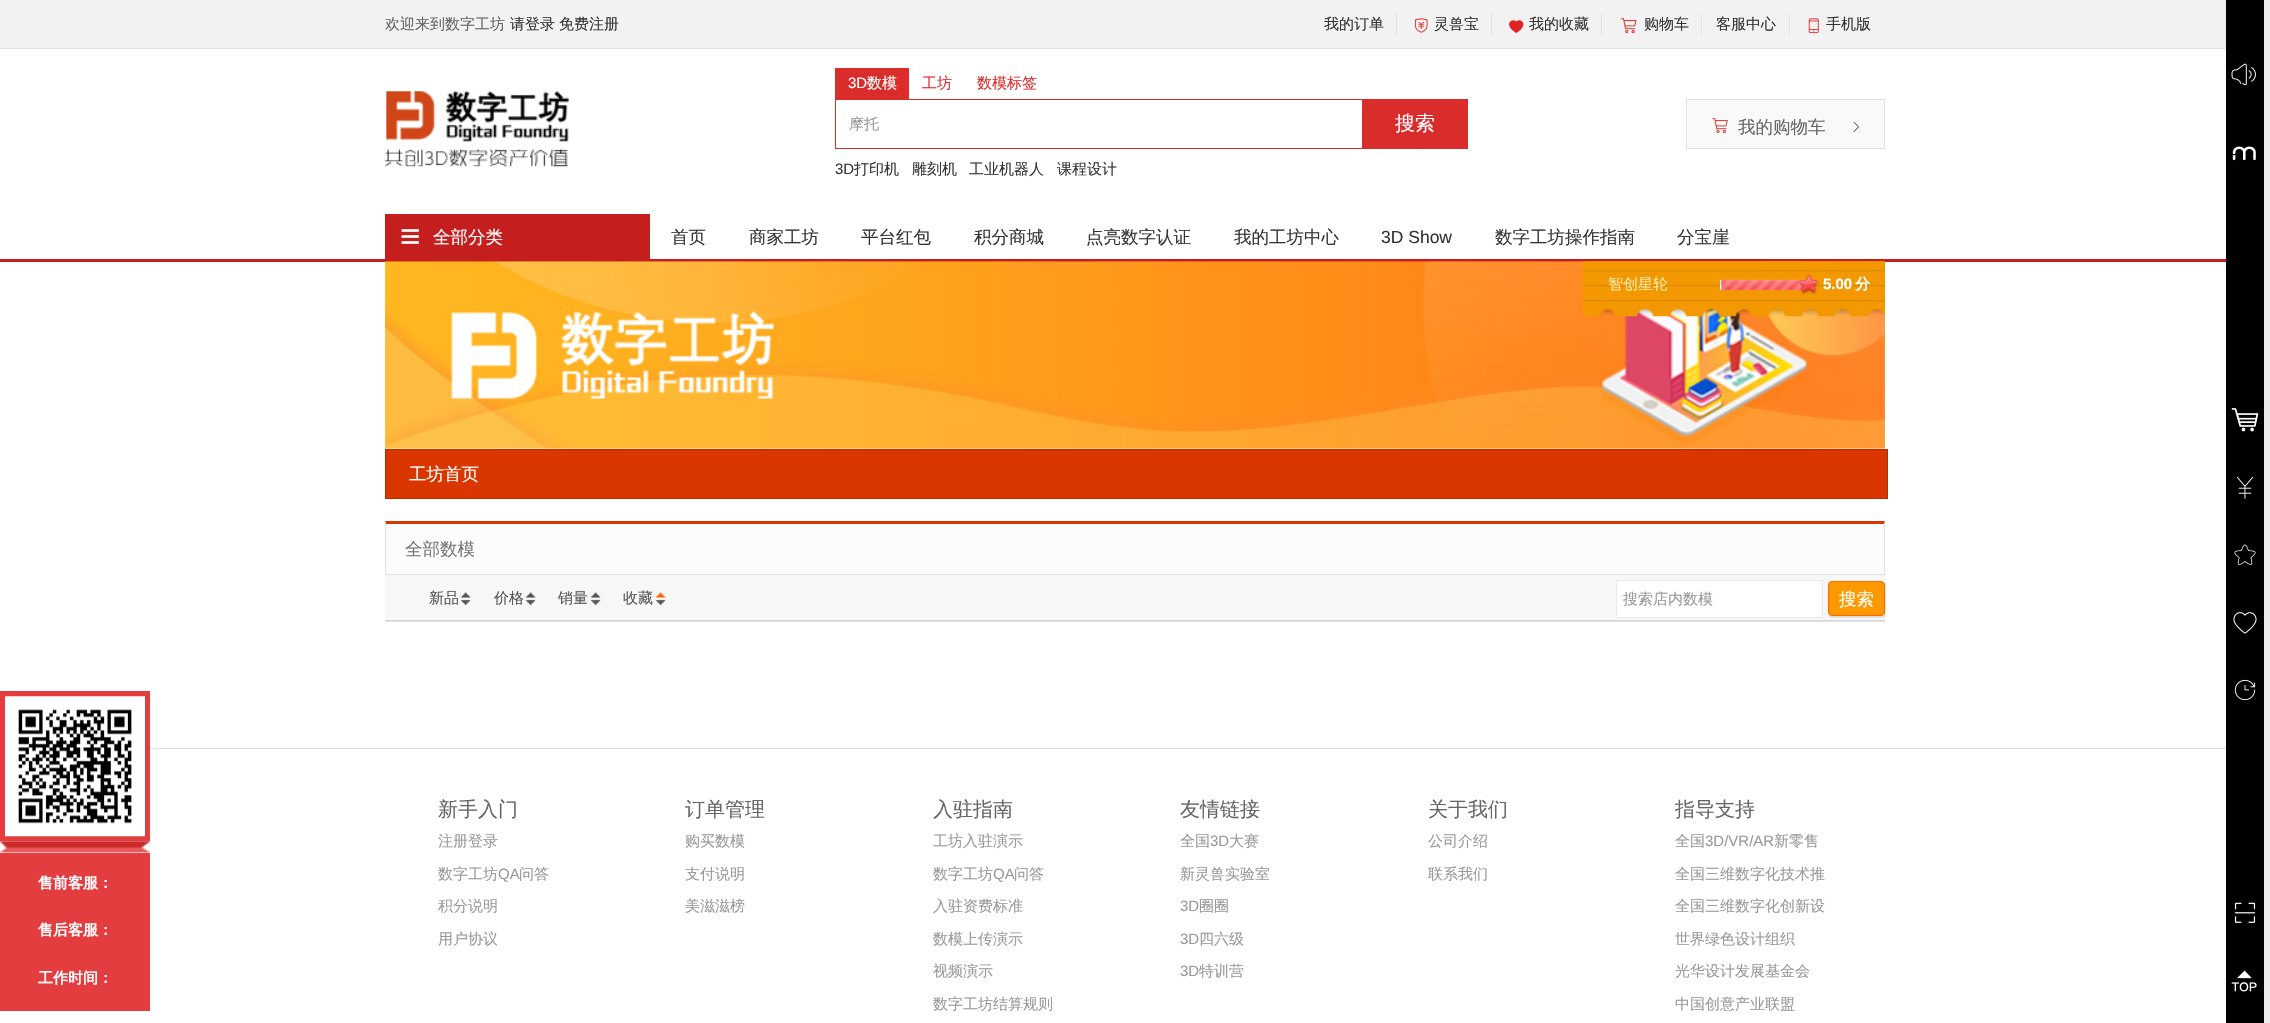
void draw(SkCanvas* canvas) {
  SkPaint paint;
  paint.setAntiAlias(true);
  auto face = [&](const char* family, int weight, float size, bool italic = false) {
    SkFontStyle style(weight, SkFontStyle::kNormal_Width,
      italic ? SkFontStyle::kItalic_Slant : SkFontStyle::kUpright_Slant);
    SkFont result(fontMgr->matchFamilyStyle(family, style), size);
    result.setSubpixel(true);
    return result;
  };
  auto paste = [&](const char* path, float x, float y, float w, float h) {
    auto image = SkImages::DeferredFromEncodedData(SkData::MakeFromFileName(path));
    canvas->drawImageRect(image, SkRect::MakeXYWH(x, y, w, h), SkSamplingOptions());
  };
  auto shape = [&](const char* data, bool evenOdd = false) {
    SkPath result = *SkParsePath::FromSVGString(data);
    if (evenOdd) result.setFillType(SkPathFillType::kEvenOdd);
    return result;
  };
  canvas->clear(0xffffffff);
  {
    const struct { float x, y, w, h; SkColor color; } items[] = {
      {0, 0, 2226, 48, 0xfff2f2f2},
      {0, 48, 2226, 1, 0xffe1e1e1},
      {1396, 14, 1, 22, 0xffe1e1e1},
    };
    for (auto [x, y, w, h, color] : items) {
      paint.setColor(color);
      canvas->drawRect(SkRect::MakeXYWH(x, y, w, h), paint);
    }
  }
  paste("img/1.png", 1414, 18, 14, 15);
  canvas->drawRect(SkRect::MakeXYWH(1491, 14, 1, 22), paint);
  paste("img/2.png", 1509, 20, 15, 13);
  canvas->drawRect(SkRect::MakeXYWH(1601, 14, 1, 22), paint);
  paste("img/3.png", 1621, 18, 16, 15);
  canvas->drawRect(SkRect::MakeXYWH(1701, 14, 1, 22), paint);
  canvas->drawRect(SkRect::MakeXYWH(1789, 14, 1, 22), paint);
  paste("img/4.png", 1808, 18, 11, 16);
  paint.setColor(0xff000000);
  canvas->drawRect(SkRect::MakeXYWH(2226, 0, 38, 1023), paint);
  paste("img/5.png", 2231, 63, 25, 23);
  paint.setColor(0xffeceaea);
  canvas->drawRect(SkRect::MakeXYWH(2264, 0, 6, 1023), paint);
  paste("img/6.png", 2232, 146, 24, 15);
  paste("img/7.png", 2231, 408, 28, 24);
  paste("img/8.png", 2236, 476, 18, 23);
  paste("img/9.png", 2234, 544, 22, 21);
  paste("img/10.png", 2233, 612, 24, 22);
  paste("img/11.png", 2234, 679, 22, 22);
  paste("img/12.png", 2234, 902, 22, 21);
  paste("img/13.png", 2231, 970, 26, 22);
  paste("img/14.png", 385, 91, 184, 76);
  paint.setColor(0xffdb2c2c);
  canvas->drawRect(SkRect::MakeXYWH(835, 68, 74, 31), paint);
  paint.setStroke(true);
  paint.setStrokeWidth(1);
  canvas->drawRect(SkRect::MakeXYWH(835.5f, 99.5f, 527, 49), paint);
  paint.setStroke(false);
  canvas->drawRect(SkRect::MakeXYWH(1363, 99, 105, 50), paint);
  paint.setStroke(true);
  paint.setColor(0xffe1e1e1);
  canvas->drawRect(SkRect::MakeXYWH(1686.5f, 99.5f, 198, 49), paint);
  paint.setStroke(false);
  paint.setColor(0xfff9f9f9);
  canvas->drawRect(SkRect::MakeXYWH(1688, 100, 196, 48), paint);
  paste("img/15.png", 1712, 118, 16, 15);
  paste("img/16.png", 1853, 121, 6, 11);
  paint.setColor(0xffc51e1e);
  canvas->drawRect(SkRect::MakeXYWH(385, 214, 265, 45), paint);
  canvas->drawRect(SkRect::MakeXYWH(0, 259, 2226, 3), paint);
  paste("img/17.png", 385, 261, 1500, 188);
  paste("img/18.png", 1582, 261, 303, 56);
  paste("img/19.png", 1720, 279, 88, 11);
  paste("img/20.png", 1721, 274, 98, 21);
  paint.setColor(0xffd93600);
  canvas->drawRect(SkRect::MakeXYWH(385.5f, 449.5f, 1502, 49), paint);
  paint.setStroke(true);
  paint.setColor(0xffb22d00);
  canvas->drawRect(SkRect::MakeXYWH(385.5f, 449.5f, 1502, 49), paint);
  paint.setStroke(false);
  paint.setColor(0xfffcfcfc);
  canvas->drawRect(SkRect::MakeXYWH(386, 524, 1498, 50), paint);
  paint.setColor(0xffd93600);
  canvas->drawPath(shape("M385 521H1885L1884 524H386Z"), paint);
  paint.setColor(0xffe1e1e1);
  canvas->drawPath(shape("M1885 521V575L1884 574V524Z"), paint);
  canvas->drawRect(SkRect::MakeXYWH(385, 574, 1500, 1), paint);
  canvas->drawPath(shape("M385 575V521L386 524V574Z"), paint);
  paint.setColor(0xfff7f7f7);
  canvas->drawRect(SkRect::MakeXYWH(385, 575, 1500, 45), paint);
  paint.setColor(0xffd8d8d8);
  canvas->drawRect(SkRect::MakeXYWH(385, 620, 1500, 1), paint);
  paste("img/21.png", 461, 592, 10, 14);
  paste("img/21.png", 526, 592, 10, 14);
  paste("img/21.png", 591, 592, 10, 14);
  paste("img/22.png", 656, 592, 10, 14);
  paint.setColor(0xffffffff);
  canvas->drawRect(SkRect::MakeXYWH(1616.5f, 580.5f, 206, 37), paint);
  paint.setStroke(true);
  paint.setColor(0xffe6e9ee);
  canvas->drawRect(SkRect::MakeXYWH(1616.5f, 580.5f, 206, 37), paint);
  paint.setStroke(false);
  paint.setColor(0x1a000000);
  paint.setMaskFilter(SkMaskFilter::MakeBlur(kNormal_SkBlurStyle, 0.5f));
  canvas->drawRoundRect(SkRect::MakeXYWH(1829, 583, 57, 35), 4, 4, paint);
  paint.setMaskFilter(nullptr);
  paint.setColor(0xffff9900);
  canvas->drawRoundRect(SkRect::MakeXYWH(1828.5f, 581.5f, 56, 34), 3.5f, 3.5f, paint);
  paint.setStroke(true);
  paint.setColor(0xffff6600);
  canvas->drawRoundRect(SkRect::MakeXYWH(1828.5f, 581.5f, 56, 34), 3.5f, 3.5f, paint);
  paint.setStroke(false);
  paint.setColor(0xffe1e1e1);
  canvas->drawRect(SkRect::MakeXYWH(385, 621, 1500, 1), paint);
  paint.setColor(0xffe43d3f);
  canvas->drawRect(SkRect::MakeXYWH(0, 691, 150, 150), paint);
  paste("img/23.png", 5, 696, 140, 141);
  paste("img/24.png", 0, 841, 150, 12);
  canvas->drawRect(SkRect::MakeXYWH(0, 853, 150, 158), paint);
  paint.setColor(0xffe1e1e1);
  canvas->drawRect(SkRect::MakeXYWH(150, 748, 2076, 1), paint);
  auto f0 = face("WenQuanYi Zen Hei", 500, 15);
  paint.setColor(0xff666666);
  canvas->drawString("欢迎来到数字工坊", 385, 29, f0, paint);
  paint.setColor(0xff333333);
  {
    const struct { const char* s; float x, y; } items[] = {
      {"请登录", 510, 29},
      {"免费注册", 559, 29},
      {"我的订单", 1324, 29},
      {"灵兽宝", 1434, 29},
      {"我的收藏", 1529, 29},
      {"购物车", 1644, 29},
      {"客服中心", 1716, 29},
      {"手机版", 1826, 29},
    };
    for (auto [s, x, y] : items) {
      canvas->drawString(s, x, y, f0, paint);
    }
  }
  auto f1 = face("Liberation Sans", 400, 15);
  paint.setColor(0xffffffff);
  canvas->drawString("3D", 848, 88, f1, paint);
  canvas->drawString("数模", 867, 88, f0, paint);
  paint.setColor(0xffdb2c2c);
  canvas->drawString("工坊", 922, 88, f0, paint);
  canvas->drawString("数模标签", 977, 88, f0, paint);
  paint.setColor(0xff999999);
  canvas->drawString("摩托", 849, 129, f0, paint);
  auto f2 = face("WenQuanYi Zen Hei", 500, 20);
  paint.setColor(0xffffffff);
  canvas->drawString("搜索", 1395, 130, f2, paint);
  auto f3 = face("WenQuanYi Zen Hei", 500, 17.5f);
  paint.setColor(0xff666666);
  canvas->drawString("我的购物车", 1738, 133, f3, paint);
  paint.setColor(0xff333333);
  canvas->drawString("3D", 835, 174, f1, paint);
  {
    const struct { const char* s; float x, y; } items[] = {
      {"打印机", 854, 174},
      {"雕刻机", 912, 174},
      {"工业机器人", 969, 174},
      {"课程设计", 1057, 174},
    };
    for (auto [s, x, y] : items) {
      canvas->drawString(s, x, y, f0, paint);
    }
  }
  auto f4 = face("Liberation Sans", 400, 35);
  paint.setColor(0xffffffff);
  canvas->drawString("≡", 400, 248, f4, paint);
  canvas->drawString("全部分类", 433, 243, f3, paint);
  paint.setColor(0xff333333);
  {
    const struct { const char* s; float x, y; } items[] = {
      {"首页", 671, 243},
      {"商家工坊", 749, 243},
      {"平台红包", 861, 243},
      {"积分商城", 974, 243},
      {"点亮数字认证", 1086, 243},
      {"我的工坊中心", 1234, 243},
    };
    for (auto [s, x, y] : items) {
      canvas->drawString(s, x, y, f3, paint);
    }
  }
  auto f5 = face("Liberation Sans", 400, 17.5f);
  canvas->drawString("3D Show", 1381, 243, f5, paint);
  canvas->drawString("数字工坊操作指南", 1495, 243, f3, paint);
  canvas->drawString("分宝崖", 1677, 243, f3, paint);
  paint.setColor(0xffffeaab);
  canvas->drawString("智创星轮", 1608, 289, f0, paint);
  auto f6 = face("Liberation Sans", 700, 15);
  paint.setColor(0xffffffff);
  canvas->drawString("5.00", 1823, 289, f6, paint);
  auto f7 = face("WenQuanYi Zen Hei", 700, 15);
  canvas->drawString("分", 1855, 289, f7, paint);
  canvas->drawString("工坊首页", 409, 480, f3, paint);
  paint.setColor(0xff777777);
  canvas->drawString("全部数模", 405, 555, f3, paint);
  paint.setColor(0xff555555);
  {
    const struct { const char* s; float x, y; } items[] = {
      {"新品", 429, 603},
      {"价格", 494, 603},
      {"销量", 558, 603},
      {"收藏", 623, 603},
    };
    for (auto [s, x, y] : items) {
      canvas->drawString(s, x, y, f0, paint);
    }
  }
  paint.setColor(0xff999999);
  canvas->drawString("搜索店内数模", 1623, 604, f0, paint);
  paint.setColor(0xffffffff);
  canvas->drawString("搜索", 1839, 605, f3, paint);
  {
    const struct { const char* s; float x, y; } items[] = {
      {"售前客服：", 38, 888},
      {"售后客服：", 38, 935},
      {"工作时间：", 38, 983},
    };
    for (auto [s, x, y] : items) {
      canvas->drawString(s, x, y, f7, paint);
    }
  }
  paint.setColor(0xff666666);
  canvas->drawString("新手入门", 438, 816, f2, paint);
  paint.setColor(0xff999999);
  canvas->drawString("注册登录", 438, 846, f0, paint);
  canvas->drawString("数字工坊", 438, 879, f0, paint);
  canvas->drawString("QA", 498, 879, f1, paint);
  {
    const struct { const char* s; float x, y; } items[] = {
      {"问答", 519, 879},
      {"积分说明", 438, 911},
      {"用户协议", 438, 944},
    };
    for (auto [s, x, y] : items) {
      canvas->drawString(s, x, y, f0, paint);
    }
  }
  paint.setColor(0xff666666);
  canvas->drawString("订单管理", 685, 816, f2, paint);
  paint.setColor(0xff999999);
  {
    const struct { const char* s; float x, y; } items[] = {
      {"购买数模", 685, 846},
      {"支付说明", 685, 879},
      {"美滋滋榜", 685, 911},
    };
    for (auto [s, x, y] : items) {
      canvas->drawString(s, x, y, f0, paint);
    }
  }
  paint.setColor(0xff666666);
  canvas->drawString("入驻指南", 933, 816, f2, paint);
  paint.setColor(0xff999999);
  canvas->drawString("工坊入驻演示", 933, 846, f0, paint);
  canvas->drawString("数字工坊", 933, 879, f0, paint);
  canvas->drawString("QA", 993, 879, f1, paint);
  {
    const struct { const char* s; float x, y; } items[] = {
      {"问答", 1014, 879},
      {"入驻资费标准", 933, 911},
      {"数模上传演示", 933, 944},
      {"视频演示", 933, 976},
      {"数字工坊结算规则", 933, 1009},
    };
    for (auto [s, x, y] : items) {
      canvas->drawString(s, x, y, f0, paint);
    }
  }
  paint.setColor(0xff666666);
  canvas->drawString("友情链接", 1180, 816, f2, paint);
  paint.setColor(0xff999999);
  canvas->drawString("全国", 1180, 846, f0, paint);
  canvas->drawString("3D", 1210, 846, f1, paint);
  canvas->drawString("大赛", 1229, 846, f0, paint);
  canvas->drawString("新灵兽实验室", 1180, 879, f0, paint);
  canvas->drawString("3D", 1180, 911, f1, paint);
  canvas->drawString("圈圈", 1199, 911, f0, paint);
  canvas->drawString("3D", 1180, 944, f1, paint);
  canvas->drawString("四六级", 1199, 944, f0, paint);
  canvas->drawString("3D", 1180, 976, f1, paint);
  canvas->drawString("特训营", 1199, 976, f0, paint);
  paint.setColor(0xff666666);
  canvas->drawString("关于我们", 1428, 816, f2, paint);
  paint.setColor(0xff999999);
  canvas->drawString("公司介绍", 1428, 846, f0, paint);
  canvas->save();
  canvas->clipRect(SkRect::MakeXYWH(1428, 859, 150, 32));
  canvas->drawString("联系我们", 1428, 879, f0, paint);
  canvas->restore();
  paint.setColor(0xff666666);
  canvas->drawString("指导支持", 1675, 816, f2, paint);
  paint.setColor(0xff999999);
  canvas->drawString("全国", 1675, 846, f0, paint);
  canvas->drawString("3D/VR/AR", 1705, 846, f1, paint);
  {
    const struct { const char* s; float x, y; } items[] = {
      {"新零售", 1774, 846},
      {"全国三维数字化技术推", 1675, 879},
      {"全国三维数字化创新设", 1675, 911},
      {"世界绿色设计组织", 1675, 944},
      {"光华设计发展基金会", 1675, 976},
      {"中国创意产业联盟", 1675, 1009},
    };
    for (auto [s, x, y] : items) {
      canvas->drawString(s, x, y, f0, paint);
    }
  }
}
